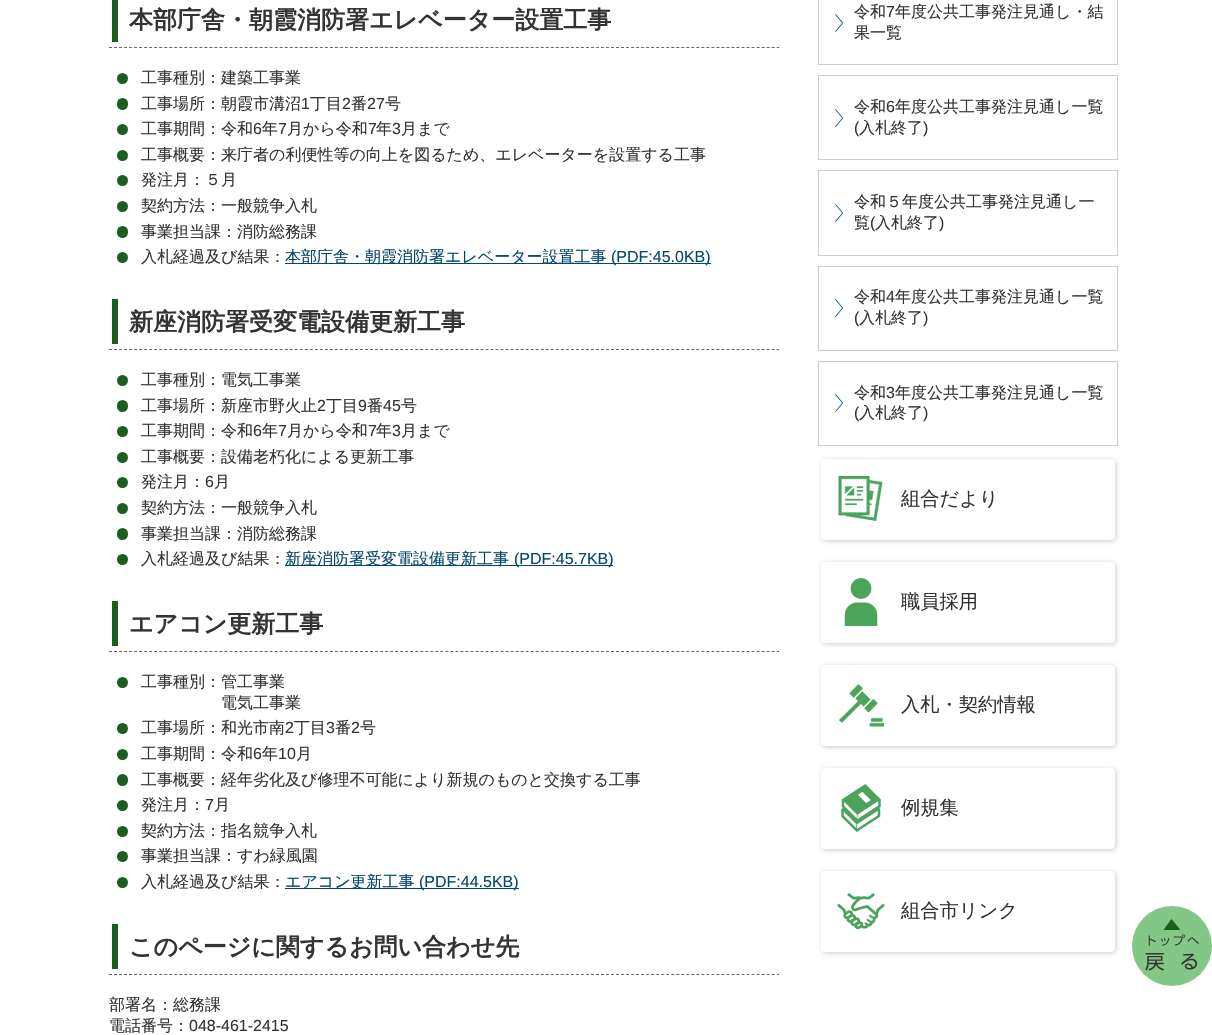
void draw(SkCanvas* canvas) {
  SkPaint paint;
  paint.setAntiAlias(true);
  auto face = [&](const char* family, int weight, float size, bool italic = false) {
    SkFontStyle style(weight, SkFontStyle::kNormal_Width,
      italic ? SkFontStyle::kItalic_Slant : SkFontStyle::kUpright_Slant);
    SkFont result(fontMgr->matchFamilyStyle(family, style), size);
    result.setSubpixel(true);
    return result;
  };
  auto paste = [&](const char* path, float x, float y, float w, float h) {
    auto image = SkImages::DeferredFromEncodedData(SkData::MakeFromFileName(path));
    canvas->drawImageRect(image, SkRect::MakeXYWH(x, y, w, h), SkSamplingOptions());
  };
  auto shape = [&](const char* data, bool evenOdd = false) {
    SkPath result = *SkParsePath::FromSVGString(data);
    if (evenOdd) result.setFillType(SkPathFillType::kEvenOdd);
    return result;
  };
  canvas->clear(0xffffffff);
  paint.setStroke(true);
  paint.setStrokeWidth(1);
  paint.setColor(0xff666666);
  paint.setPathEffect(SkDashPathEffect::Make({{3, 2.02f}}, 0));
  canvas->drawPath(shape("M109 47.5H779"), paint);
  paint.setPathEffect(nullptr);
  paint.setStroke(false);
  paint.setColor(0xff1b5e20);
  canvas->drawRect(SkRect::MakeXYWH(112, 0, 6, 42), paint);
  canvas->drawCircle(122.5f, 78.5f, 5.5f, paint);
  canvas->drawRoundRect(SkRect::MakeXYWH(117, 98, 11, 12), 5.5f, 5.5f, paint);
  canvas->drawCircle(122.5f, 129.5f, 5.5f, paint);
  canvas->drawCircle(122.5f, 155.5f, 5.5f, paint);
  canvas->drawCircle(122.5f, 180.5f, 5.5f, paint);
  canvas->drawCircle(122.5f, 206.5f, 5.5f, paint);
  canvas->drawRoundRect(SkRect::MakeXYWH(117, 226, 11, 12), 5.5f, 5.5f, paint);
  canvas->drawCircle(122.5f, 257.5f, 5.5f, paint);
  paint.setColor(0xff00476a);
  canvas->drawRect(SkRect::MakeXYWH(285, 263, 426, 1), paint);
  paint.setStroke(true);
  paint.setColor(0xff666666);
  paint.setPathEffect(SkDashPathEffect::Make({{3, 2.02f}}, 0));
  canvas->drawPath(shape("M109 349.5H779"), paint);
  paint.setPathEffect(nullptr);
  paint.setStroke(false);
  paint.setColor(0xff1b5e20);
  canvas->drawRect(SkRect::MakeXYWH(112, 299, 6, 45), paint);
  canvas->drawCircle(122.5f, 380.5f, 5.5f, paint);
  canvas->drawRoundRect(SkRect::MakeXYWH(117, 400, 11, 12), 5.5f, 5.5f, paint);
  canvas->drawCircle(122.5f, 431.5f, 5.5f, paint);
  canvas->drawCircle(122.5f, 457.5f, 5.5f, paint);
  canvas->drawCircle(122.5f, 482.5f, 5.5f, paint);
  canvas->drawCircle(122.5f, 508.5f, 5.5f, paint);
  canvas->drawRoundRect(SkRect::MakeXYWH(117, 528, 11, 12), 5.5f, 5.5f, paint);
  canvas->drawCircle(122.5f, 559.5f, 5.5f, paint);
  paint.setColor(0xff00476a);
  canvas->drawRect(SkRect::MakeXYWH(285, 565, 328, 1), paint);
  paint.setStroke(true);
  paint.setColor(0xff666666);
  paint.setPathEffect(SkDashPathEffect::Make({{3, 2.02f}}, 0));
  canvas->drawPath(shape("M109 651.5H779"), paint);
  paint.setPathEffect(nullptr);
  paint.setStroke(false);
  paint.setColor(0xff1b5e20);
  canvas->drawRect(SkRect::MakeXYWH(112, 601, 6, 45), paint);
  canvas->drawCircle(122.5f, 682.5f, 5.5f, paint);
  canvas->drawCircle(122.5f, 728.5f, 5.5f, paint);
  canvas->drawCircle(122.5f, 754.5f, 5.5f, paint);
  canvas->drawRoundRect(SkRect::MakeXYWH(117, 774, 11, 12), 5.5f, 5.5f, paint);
  canvas->drawCircle(122.5f, 805.5f, 5.5f, paint);
  canvas->drawCircle(122.5f, 831.5f, 5.5f, paint);
  canvas->drawCircle(122.5f, 856.5f, 5.5f, paint);
  canvas->drawCircle(122.5f, 882.5f, 5.5f, paint);
  paint.setColor(0xff00476a);
  canvas->drawRect(SkRect::MakeXYWH(285, 888, 234, 1), paint);
  paint.setStroke(true);
  paint.setColor(0xff666666);
  paint.setPathEffect(SkDashPathEffect::Make({{3, 2.02f}}, 0));
  canvas->drawPath(shape("M109 974.5H779"), paint);
  paint.setPathEffect(nullptr);
  paint.setStroke(false);
  paint.setColor(0xff1b5e20);
  canvas->drawRect(SkRect::MakeXYWH(112, 924, 6, 45), paint);
  paste("img/1.png", 835, 14, 9, 18);
  paint.setStroke(true);
  paint.setColor(0xffcccccc);
  canvas->drawRect(SkRect::MakeXYWH(818.5f, -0.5f, 299, 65), paint);
  paste("img/1.png", 835, 109, 9, 18);
  canvas->drawRect(SkRect::MakeXYWH(818.5f, 75.5f, 299, 84), paint);
  paste("img/1.png", 835, 204, 9, 18);
  canvas->drawRect(SkRect::MakeXYWH(818.5f, 170.5f, 299, 85), paint);
  paste("img/1.png", 835, 299, 9, 18);
  canvas->drawRect(SkRect::MakeXYWH(818.5f, 266.5f, 299, 84), paint);
  paste("img/1.png", 835, 394, 9, 18);
  canvas->drawRect(SkRect::MakeXYWH(818.5f, 361.5f, 299, 84), paint);
  paint.setStroke(false);
  paint.setColor(0x33000000);
  paint.setMaskFilter(SkMaskFilter::MakeBlur(kNormal_SkBlurStyle, 2.5f));
  canvas->drawRoundRect(SkRect::MakeXYWH(822, 460, 294, 81), 4, 4, paint);
  paint.setMaskFilter(nullptr);
  paint.setColor(0xffffffff);
  canvas->drawRoundRect(SkRect::MakeXYWH(821, 459, 294, 81), 4, 4, paint);
  paste("img/2.png", 838, 476, 45, 45);
  paint.setColor(0x33000000);
  paint.setMaskFilter(SkMaskFilter::MakeBlur(kNormal_SkBlurStyle, 2.5f));
  canvas->drawRoundRect(SkRect::MakeXYWH(822, 563, 294, 81), 4, 4, paint);
  paint.setMaskFilter(nullptr);
  paint.setColor(0xffffffff);
  canvas->drawRoundRect(SkRect::MakeXYWH(821, 562, 294, 81), 4, 4, paint);
  paste("img/3.png", 844, 578, 34, 48);
  paint.setColor(0x33000000);
  paint.setMaskFilter(SkMaskFilter::MakeBlur(kNormal_SkBlurStyle, 2.5f));
  canvas->drawRoundRect(SkRect::MakeXYWH(822, 666, 294, 81), 4, 4, paint);
  paint.setMaskFilter(nullptr);
  paint.setColor(0xffffffff);
  canvas->drawRoundRect(SkRect::MakeXYWH(821, 665, 294, 81), 4, 4, paint);
  paste("img/4.png", 839, 684, 45, 43);
  paint.setColor(0x33000000);
  paint.setMaskFilter(SkMaskFilter::MakeBlur(kNormal_SkBlurStyle, 2.5f));
  canvas->drawRoundRect(SkRect::MakeXYWH(822, 769, 294, 81), 4, 4, paint);
  paint.setMaskFilter(nullptr);
  paint.setColor(0xffffffff);
  canvas->drawRoundRect(SkRect::MakeXYWH(821, 768, 294, 81), 4, 4, paint);
  paste("img/5.png", 841, 784, 40, 48);
  paint.setColor(0x33000000);
  paint.setMaskFilter(SkMaskFilter::MakeBlur(kNormal_SkBlurStyle, 2.5f));
  canvas->drawRoundRect(SkRect::MakeXYWH(822, 872, 294, 81), 4, 4, paint);
  paint.setMaskFilter(nullptr);
  paint.setColor(0xffffffff);
  canvas->drawRoundRect(SkRect::MakeXYWH(821, 871, 294, 81), 4, 4, paint);
  paste("img/6.png", 837, 893, 48, 37);
  paint.setColor(0xff82c785);
  canvas->drawCircle(1172, 946, 40, paint);
  paste("img/7.png", 1145, 919, 54, 52);
  auto f0 = face("WenQuanYi Zen Hei", 700, 24);
  paint.setColor(0xff333333);
  canvas->drawString("本部庁舎・朝霞消防署エレベーター設置工事", 129, 28, f0, paint);
  auto f1 = face("WenQuanYi Zen Hei", 500, 16);
  canvas->drawString("工事種別：建築工事業", 141, 83, f1, paint);
  canvas->drawString("工事場所：朝霞市溝沼", 141, 109, f1, paint);
  auto f2 = face("Liberation Sans", 400, 16);
  canvas->drawString("1", 301, 109, f2, paint);
  canvas->drawString("丁目", 310, 109, f1, paint);
  canvas->drawString("2", 342, 109, f2, paint);
  canvas->drawString("番", 351, 109, f1, paint);
  canvas->drawString("27", 367, 109, f2, paint);
  canvas->drawString("号", 385, 109, f1, paint);
  canvas->drawString("工事期間：令和", 141, 134, f1, paint);
  canvas->drawString("6", 253, 134, f2, paint);
  canvas->drawString("年", 262, 134, f1, paint);
  canvas->drawString("7", 278, 134, f2, paint);
  canvas->drawString("月から令和", 287, 134, f1, paint);
  canvas->drawString("7", 368, 134, f2, paint);
  canvas->drawString("年", 376, 134, f1, paint);
  canvas->drawString("3", 392, 134, f2, paint);
  {
    const struct { const char* s; float x, y; } items[] = {
      {"月まで", 401, 134},
      {"工事概要：来庁者の利便性等の向上を図るため、エレベーターを設置する工事", 141, 160},
      {"発注月：５月", 141, 185},
      {"契約方法：一般競争入札", 141, 211},
      {"事業担当課：消防総務課", 141, 237},
      {"入札経過及び結果：", 141, 262},
    };
    for (auto [s, x, y] : items) {
      canvas->drawString(s, x, y, f1, paint);
    }
  }
  paint.setColor(0xff00476a);
  canvas->drawString("本部庁舎・朝霞消防署エレベーター設置工事", 285, 262, f1, paint);
  canvas->drawString("(PDF:45.0KB)", 611, 262, f2, paint);
  paint.setColor(0xff333333);
  canvas->drawString("新座消防署受変電設備更新工事", 129, 330, f0, paint);
  canvas->drawString("工事種別：電気工事業", 141, 385, f1, paint);
  canvas->drawString("工事場所：新座市野火止", 141, 411, f1, paint);
  canvas->drawString("2", 317, 411, f2, paint);
  canvas->drawString("丁目", 326, 411, f1, paint);
  canvas->drawString("9", 358, 411, f2, paint);
  canvas->drawString("番", 367, 411, f1, paint);
  canvas->drawString("45", 383, 411, f2, paint);
  canvas->drawString("号", 401, 411, f1, paint);
  canvas->drawString("工事期間：令和", 141, 436, f1, paint);
  canvas->drawString("6", 253, 436, f2, paint);
  canvas->drawString("年", 262, 436, f1, paint);
  canvas->drawString("7", 278, 436, f2, paint);
  canvas->drawString("月から令和", 287, 436, f1, paint);
  canvas->drawString("7", 368, 436, f2, paint);
  canvas->drawString("年", 376, 436, f1, paint);
  canvas->drawString("3", 392, 436, f2, paint);
  {
    const struct { const char* s; float x, y; } items[] = {
      {"月まで", 401, 436},
      {"工事概要：設備老朽化による更新工事", 141, 462},
      {"発注月：", 141, 487},
    };
    for (auto [s, x, y] : items) {
      canvas->drawString(s, x, y, f1, paint);
    }
  }
  canvas->drawString("6", 205, 487, f2, paint);
  {
    const struct { const char* s; float x, y; } items[] = {
      {"月", 214, 487},
      {"契約方法：一般競争入札", 141, 513},
      {"事業担当課：消防総務課", 141, 539},
      {"入札経過及び結果：", 141, 564},
    };
    for (auto [s, x, y] : items) {
      canvas->drawString(s, x, y, f1, paint);
    }
  }
  paint.setColor(0xff00476a);
  canvas->drawString("新座消防署受変電設備更新工事", 285, 564, f1, paint);
  canvas->drawString("(PDF:45.7KB)", 514, 564, f2, paint);
  paint.setColor(0xff333333);
  canvas->drawString("エアコン更新工事", 129, 632, f0, paint);
  {
    const struct { const char* s; float x, y; } items[] = {
      {"工事種別：管工事業", 141, 687},
      {"電気工事業", 221, 708},
      {"工事場所：和光市南", 141, 733},
    };
    for (auto [s, x, y] : items) {
      canvas->drawString(s, x, y, f1, paint);
    }
  }
  canvas->drawString("2", 285, 733, f2, paint);
  canvas->drawString("丁目", 294, 733, f1, paint);
  canvas->drawString("3", 326, 733, f2, paint);
  canvas->drawString("番", 335, 733, f1, paint);
  canvas->drawString("2", 351, 733, f2, paint);
  canvas->drawString("号", 360, 733, f1, paint);
  canvas->drawString("工事期間：令和", 141, 759, f1, paint);
  canvas->drawString("6", 253, 759, f2, paint);
  canvas->drawString("年", 262, 759, f1, paint);
  canvas->drawString("10", 278, 759, f2, paint);
  {
    const struct { const char* s; float x, y; } items[] = {
      {"月", 296, 759},
      {"工事概要：経年劣化及び修理不可能により新規のものと交換する工事", 141, 785},
      {"発注月：", 141, 810},
    };
    for (auto [s, x, y] : items) {
      canvas->drawString(s, x, y, f1, paint);
    }
  }
  canvas->drawString("7", 205, 810, f2, paint);
  {
    const struct { const char* s; float x, y; } items[] = {
      {"月", 214, 810},
      {"契約方法：指名競争入札", 141, 836},
      {"事業担当課：すわ緑風園", 141, 861},
      {"入札経過及び結果：", 141, 887},
    };
    for (auto [s, x, y] : items) {
      canvas->drawString(s, x, y, f1, paint);
    }
  }
  paint.setColor(0xff00476a);
  canvas->drawString("エアコン更新工事", 285, 887, f1, paint);
  canvas->drawString("(PDF:44.5KB)", 419, 887, f2, paint);
  paint.setColor(0xff333333);
  canvas->drawString("このページに関するお問い合わせ先", 129, 955, f0, paint);
  canvas->drawString("部署名：総務課", 109, 1010, f1, paint);
  canvas->drawString("電話番号：", 109, 1031, f1, paint);
  canvas->drawString("048-461-2415", 189, 1031, f2, paint);
  canvas->drawString("令和", 854, 17, f1, paint);
  canvas->drawString("7", 886, 17, f2, paint);
  {
    const struct { const char* s; float x, y; } items[] = {
      {"年度公共工事発注見通し・結", 895, 17},
      {"果一覧", 854, 38},
      {"令和", 854, 112},
    };
    for (auto [s, x, y] : items) {
      canvas->drawString(s, x, y, f1, paint);
    }
  }
  canvas->drawString("6", 886, 112, f2, paint);
  canvas->drawString("年度公共工事発注見通し一覧", 895, 112, f1, paint);
  canvas->drawString("(", 854, 133, f2, paint);
  canvas->drawString("入札終了", 859, 133, f1, paint);
  canvas->drawString(")", 923, 133, f2, paint);
  canvas->drawString("令和５年度公共工事発注見通し一", 854, 207, f1, paint);
  canvas->drawString("覧", 854, 228, f1, paint);
  canvas->drawString("(", 870, 228, f2, paint);
  canvas->drawString("入札終了", 875, 228, f1, paint);
  canvas->drawString(")", 939, 228, f2, paint);
  canvas->drawString("令和", 854, 302, f1, paint);
  canvas->drawString("4", 886, 302, f2, paint);
  canvas->drawString("年度公共工事発注見通し一覧", 895, 302, f1, paint);
  canvas->drawString("(", 854, 323, f2, paint);
  canvas->drawString("入札終了", 859, 323, f1, paint);
  canvas->drawString(")", 923, 323, f2, paint);
  canvas->drawString("令和", 854, 398, f1, paint);
  canvas->drawString("3", 886, 398, f2, paint);
  canvas->drawString("年度公共工事発注見通し一覧", 895, 398, f1, paint);
  canvas->drawString("(", 854, 418, f2, paint);
  canvas->drawString("入札終了", 859, 418, f1, paint);
  canvas->drawString(")", 923, 418, f2, paint);
  auto f3 = face("WenQuanYi Zen Hei", 500, 19.25f);
  {
    const struct { const char* s; float x, y; } items[] = {
      {"組合だより", 901, 505},
      {"職員採用", 901, 608},
      {"入札・契約情報", 901, 711},
      {"例規集", 901, 814},
      {"組合市リンク", 901, 917},
    };
    for (auto [s, x, y] : items) {
      canvas->drawString(s, x, y, f3, paint);
    }
  }
}
